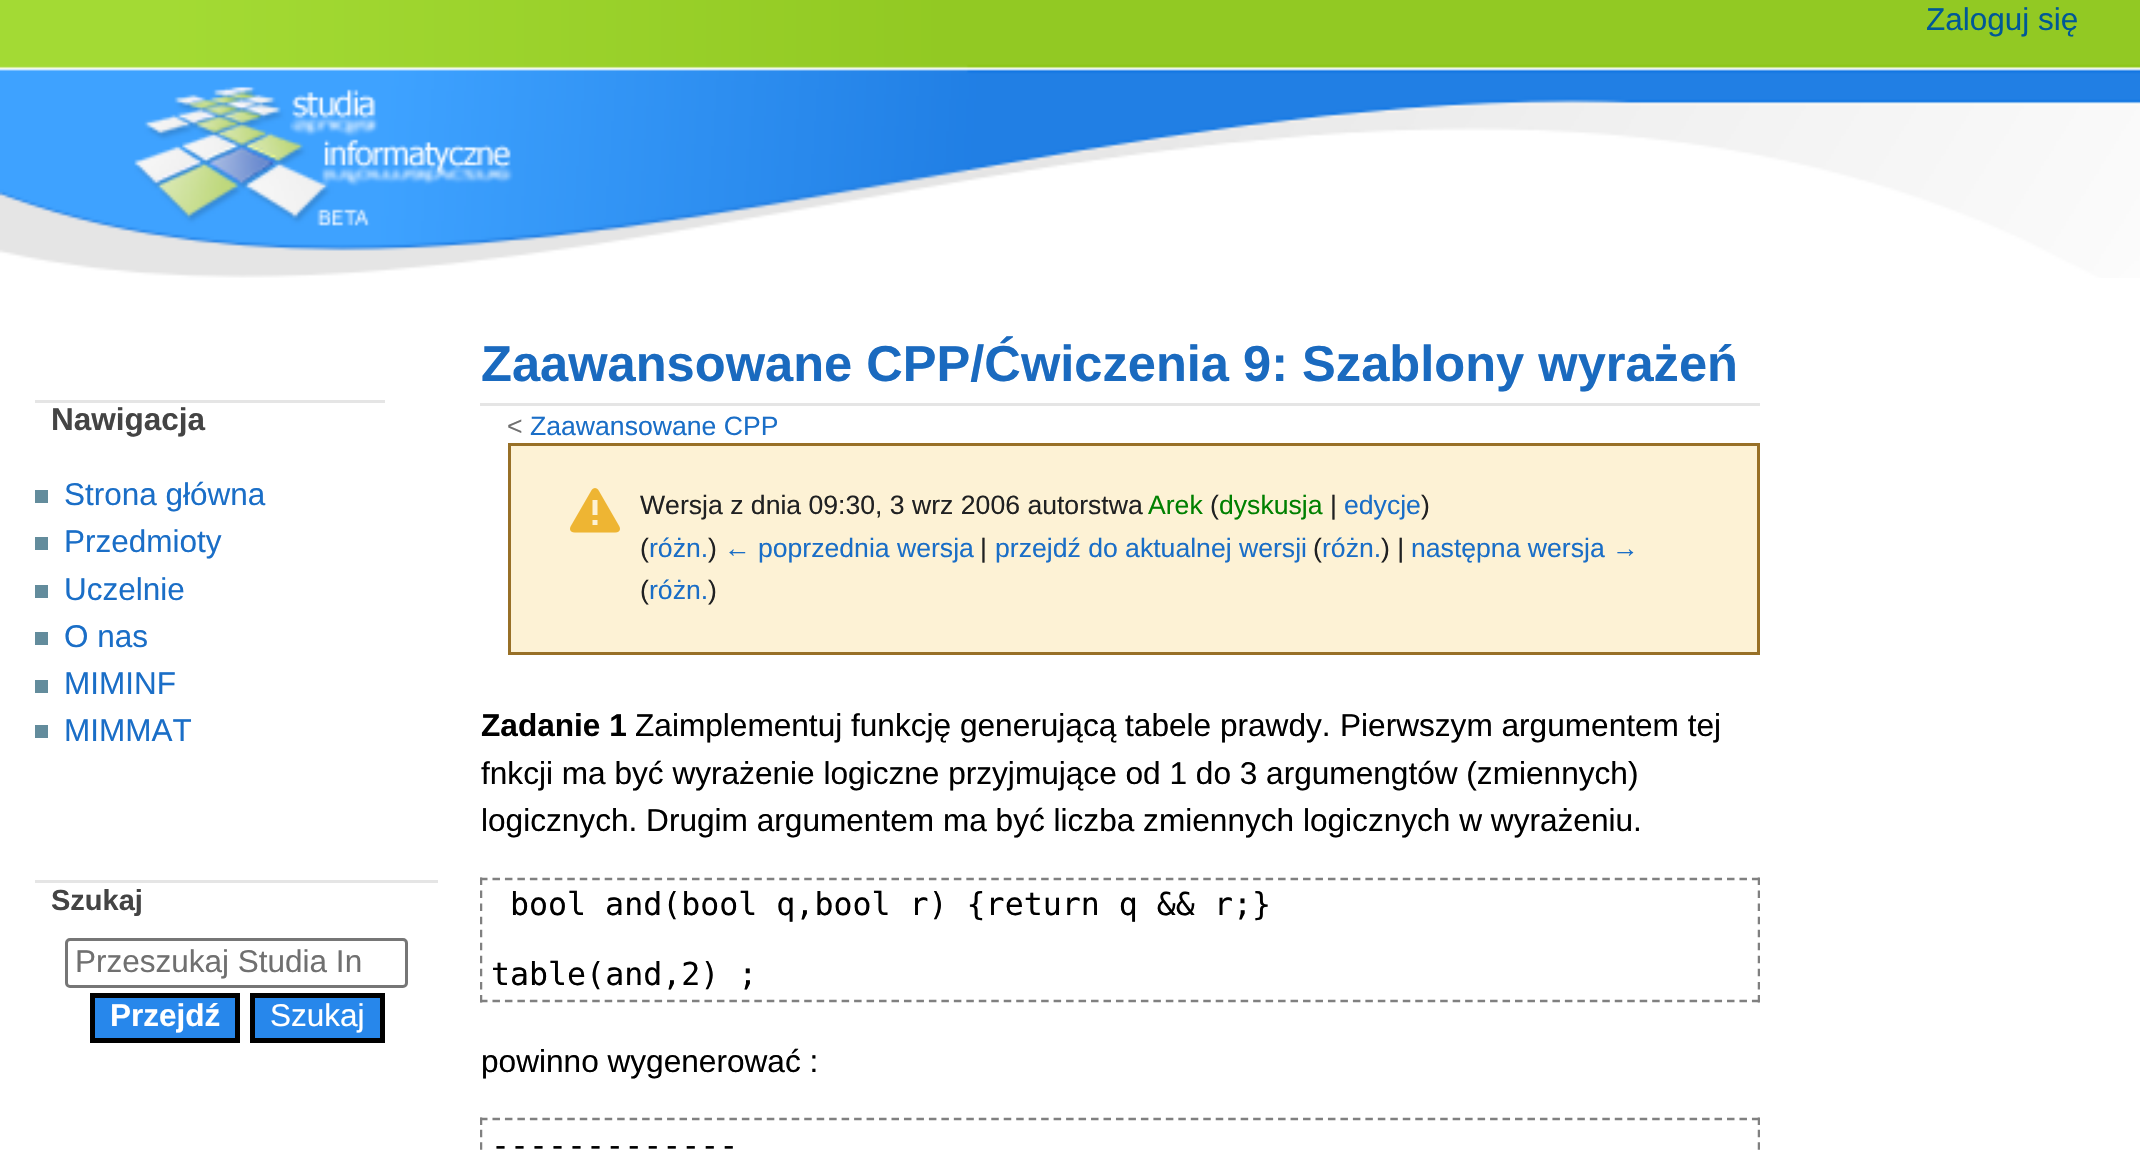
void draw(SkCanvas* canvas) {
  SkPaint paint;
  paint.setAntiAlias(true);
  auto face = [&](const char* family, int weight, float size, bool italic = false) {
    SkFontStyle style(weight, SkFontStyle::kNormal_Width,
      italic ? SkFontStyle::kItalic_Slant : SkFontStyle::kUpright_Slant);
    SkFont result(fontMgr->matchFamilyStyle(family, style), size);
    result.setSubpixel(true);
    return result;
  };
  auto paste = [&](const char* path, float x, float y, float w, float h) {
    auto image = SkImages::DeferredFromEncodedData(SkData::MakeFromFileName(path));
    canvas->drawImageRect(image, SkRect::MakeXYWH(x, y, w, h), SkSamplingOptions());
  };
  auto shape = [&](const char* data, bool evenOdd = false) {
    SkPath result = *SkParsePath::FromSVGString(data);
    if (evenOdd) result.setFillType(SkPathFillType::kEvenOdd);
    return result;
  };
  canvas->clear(0xffffffff);
  paste("img/1.png", 0, 0, 2140, 278);
  {
    const struct { float x, y, w, h; SkColor color; } items[] = {
      {35, 400, 350, 3, 0xffe5e5e5},
      {35, 490, 13, 13, 0xff638c9c},
      {35, 537, 13, 13, 0xff638c9c},
      {35, 585, 13, 13, 0xff638c9c},
      {35, 632, 13, 13, 0xff638c9c},
      {35, 680, 13, 13, 0xff638c9c},
      {35, 725, 13, 13, 0xff638c9c},
      {35, 880, 403, 3, 0xffe5e5e5},
    };
    for (auto [x, y, w, h, color] : items) {
      paint.setColor(color);
      canvas->drawRect(SkRect::MakeXYWH(x, y, w, h), paint);
    }
  }
  paint.setStroke(true);
  paint.setStrokeWidth(3);
  paint.setColor(0xff767676);
  canvas->drawRoundRect(SkRect::MakeXYWH(66.5f, 939.5f, 340, 47), 3.5f, 3.5f, paint);
  paint.setStroke(false);
  paint.setColor(0xff2787eb);
  canvas->drawRect(SkRect::MakeXYWH(92.5f, 995.5f, 145, 45), paint);
  paint.setStroke(true);
  paint.setStrokeWidth(5);
  paint.setColor(0xff000000);
  canvas->drawRect(SkRect::MakeXYWH(92.5f, 995.5f, 145, 45), paint);
  paint.setStroke(false);
  paint.setColor(0xff2787eb);
  canvas->drawRect(SkRect::MakeXYWH(252.5f, 995.5f, 130, 45), paint);
  paint.setStroke(true);
  paint.setColor(0xff000000);
  canvas->drawRect(SkRect::MakeXYWH(252.5f, 995.5f, 130, 45), paint);
  paint.setStroke(false);
  paint.setColor(0xffe5e5e5);
  canvas->drawRect(SkRect::MakeXYWH(480, 403, 1280, 3), paint);
  paint.setColor(0xfffdf2d5);
  canvas->drawRect(SkRect::MakeXYWH(509.5f, 444.5f, 1249, 209), paint);
  paint.setStroke(true);
  paint.setStrokeWidth(3);
  paint.setColor(0xff987027);
  canvas->drawRect(SkRect::MakeXYWH(509.5f, 444.5f, 1249, 209), paint);
  paste("img/2.png", 570, 488, 50, 45);
  paint.setStrokeWidth(2.5f);
  paint.setColor(0xff808080);
  paint.setPathEffect(SkDashPathEffect::Make({{7.5f, 4.97f}}, 0));
  canvas->drawPath(shape("M480 879H1760"), paint);
  paint.setPathEffect(nullptr);
  canvas->save();
  canvas->clipRect(SkRect::MakeXYWH(480, 693, 1280, 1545));
  paint.setPathEffect(SkDashPathEffect::Make({{7.5f, 5.55f}}, 0));
  canvas->drawPath(shape("M1759 877.5V1002.5"), paint);
  paint.setPathEffect(nullptr);
  canvas->restore();
  paint.setPathEffect(SkDashPathEffect::Make({{7.5f, 4.97f}}, 0));
  canvas->drawPath(shape("M480 1001H1760"), paint);
  paint.setPathEffect(nullptr);
  canvas->save();
  canvas->clipRect(SkRect::MakeXYWH(480, 693, 1280, 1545));
  paint.setPathEffect(SkDashPathEffect::Make({{7.5f, 5.55f}}, 0));
  canvas->drawPath(shape("M481 877.5V1002.5"), paint);
  paint.setPathEffect(nullptr);
  canvas->restore();
  paint.setPathEffect(SkDashPathEffect::Make({{7.5f, 4.97f}}, 0));
  canvas->drawPath(shape("M480 1119H1760"), paint);
  paint.setPathEffect(nullptr);
  canvas->save();
  canvas->clipRect(SkRect::MakeXYWH(480, 693, 1280, 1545));
  paint.setPathEffect(SkDashPathEffect::Make({{7.5f, 4.85f}}, 0));
  canvas->drawPath(shape("M1759 1117.5V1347.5"), paint);
  paint.setPathEffect(nullptr);
  paint.setPathEffect(SkDashPathEffect::Make({{7.5f, 4.85f}}, 0));
  canvas->drawPath(shape("M481 1117.5V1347.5"), paint);
  paint.setPathEffect(nullptr);
  canvas->restore();
  auto f0 = face("Liberation Sans", 400, 31.5f);
  paint.setStroke(false);
  paint.setColor(0xff005896);
  canvas->drawString("Zaloguj się", 1926, 30, f0, paint);
  auto f1 = face("Liberation Sans", 700, 31.5f);
  paint.setColor(0xff444444);
  canvas->drawString("Nawigacja", 51, 430, f1, paint);
  paint.setColor(0xff1a6ec7);
  {
    const struct { const char* s; float x, y; } items[] = {
      {"Strona główna", 64, 505},
      {"Przedmioty", 64, 552},
      {"Uczelnie", 64, 600},
      {"O nas", 64, 647},
      {"MIMINF", 64, 694},
      {"MIMMAT", 64, 741},
    };
    for (auto [s, x, y] : items) {
      canvas->drawString(s, x, y, f0, paint);
    }
  }
  auto f2 = face("Liberation Sans", 700, 29);
  paint.setColor(0xff444444);
  canvas->drawString("Szukaj", 51, 910, f2, paint);
  paint.setColor(0xff707070);
  canvas->drawString("Przeszukaj Studia In", 75, 972, f0, paint);
  paint.setColor(0xffffffff);
  canvas->drawString("Przejdź", 110, 1026, f1, paint);
  canvas->drawString("Szukaj", 270, 1026, f0, paint);
  auto f3 = face("Liberation Sans", 700, 50.6f);
  paint.setColor(0xff1a6abf);
  canvas->drawString("Zaawansowane CPP/Ćwiczenia 9: Szablony wyrażeń", 481, 381, f3, paint);
  auto f4 = face("Liberation Sans", 400, 26.6f);
  paint.setColor(0xff707070);
  canvas->drawString("<", 507, 435, f4, paint);
  paint.setColor(0xff1a6ec7);
  canvas->drawString("Zaawansowane CPP", 530, 435, f4, paint);
  paint.setColor(0xff202122);
  canvas->drawString("Wersja z dnia 09:30, 3 wrz 2006 autorstwa", 640, 514, f4, paint);
  paint.setColor(0xff008000);
  canvas->drawString("Arek", 1148, 514, f4, paint);
  paint.setColor(0xff202122);
  canvas->drawString("(", 1210, 514, f4, paint);
  paint.setColor(0xff008000);
  canvas->drawString("dyskusja", 1219, 514, f4, paint);
  paint.setColor(0xff202122);
  canvas->drawString("|", 1330, 514, f4, paint);
  paint.setColor(0xff1a6ec7);
  canvas->drawString("edycje", 1344, 514, f4, paint);
  paint.setColor(0xff202122);
  canvas->drawString(")", 1421, 514, f4, paint);
  canvas->drawString("(", 640, 557, f4, paint);
  paint.setColor(0xff1a6ec7);
  canvas->drawString("różn.", 649, 557, f4, paint);
  paint.setColor(0xff202122);
  canvas->drawString(")", 708, 557, f4, paint);
  paint.setColor(0xff1a6ec7);
  canvas->drawString("← poprzednia wersja", 724, 557, f4, paint);
  paint.setColor(0xff202122);
  canvas->drawString("|", 980, 557, f4, paint);
  paint.setColor(0xff1a6ec7);
  canvas->drawString("przejdź do aktualnej wersji", 995, 557, f4, paint);
  paint.setColor(0xff202122);
  canvas->drawString("(", 1313, 557, f4, paint);
  paint.setColor(0xff1a6ec7);
  canvas->drawString("różn.", 1322, 557, f4, paint);
  paint.setColor(0xff202122);
  canvas->drawString(") |", 1381, 557, f4, paint);
  paint.setColor(0xff1a6ec7);
  canvas->drawString("następna wersja →", 1411, 557, f4, paint);
  paint.setColor(0xff202122);
  canvas->drawString("(", 640, 599, f4, paint);
  paint.setColor(0xff1a6ec7);
  canvas->drawString("różn.", 649, 599, f4, paint);
  paint.setColor(0xff202122);
  canvas->drawString(")", 708, 599, f4, paint);
  auto f5 = face("Liberation Sans", 700, 31.6f);
  paint.setColor(0xff000000);
  canvas->drawString("Zadanie 1", 481, 736, f5, paint);
  auto f6 = face("Liberation Sans", 400, 31.6f);
  {
    const struct { const char* s; float x, y; } items[] = {
      {"Zaimplementuj funkcję generującą tabele prawdy.", 635, 736},
      {"Pierwszym argumentem tej", 1340, 736},
      {"fnkcji ma być wyrażenie logiczne przyjmujące od 1 do 3 argumengtów (zmiennych)", 481, 784},
      {"logicznych. Drugim argumentem ma być liczba zmiennych logicznych w wyrażeniu.", 481, 831},
    };
    for (auto [s, x, y] : items) {
      canvas->drawString(s, x, y, f6, paint);
    }
  }
  auto f7 = face("DejaVu Sans Mono", 400, 31.6f);
  canvas->drawString("bool and(bool q,bool r) {return q && r;}", 510, 915, f7, paint);
  canvas->drawString("table(and,2) ;", 491, 985, f7, paint);
  canvas->drawString("powinno wygenerować :", 481, 1072, f6, paint);
  canvas->drawString("-------------", 491, 1156, f7, paint);
}
